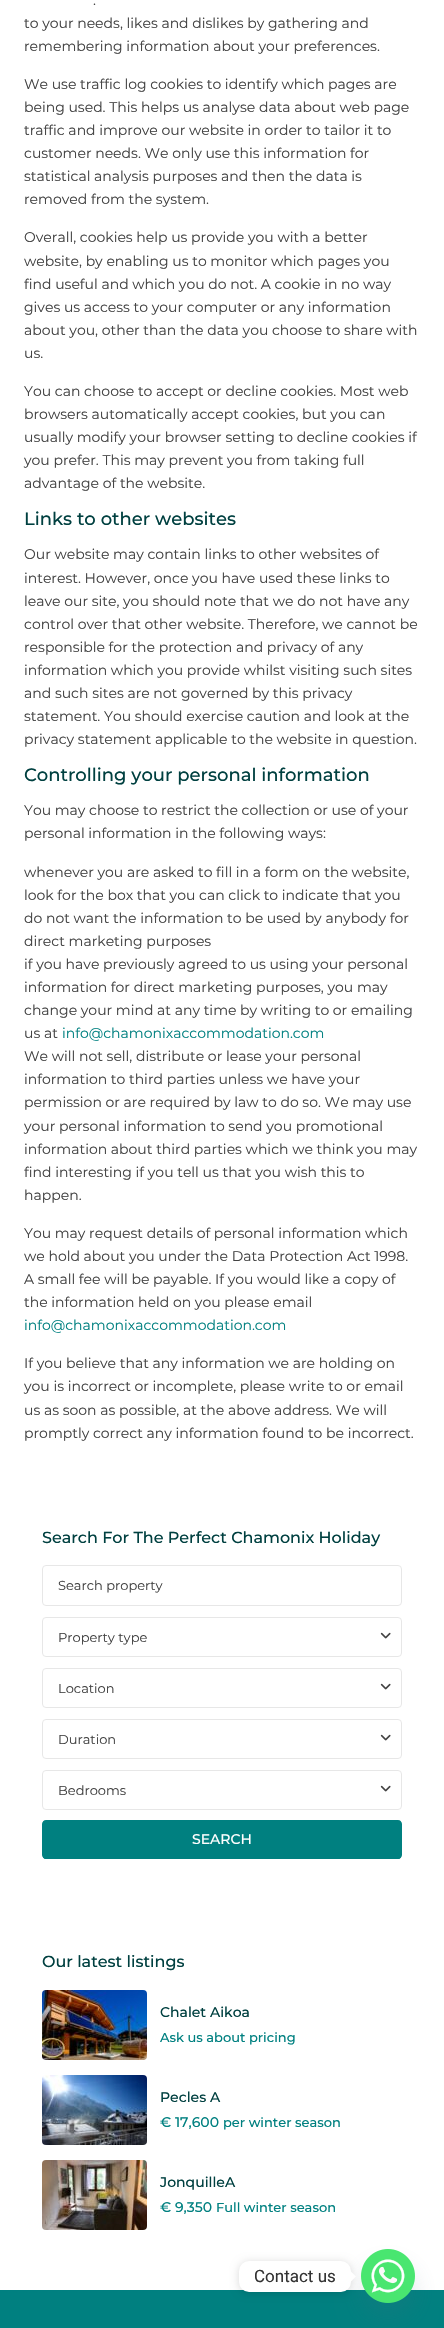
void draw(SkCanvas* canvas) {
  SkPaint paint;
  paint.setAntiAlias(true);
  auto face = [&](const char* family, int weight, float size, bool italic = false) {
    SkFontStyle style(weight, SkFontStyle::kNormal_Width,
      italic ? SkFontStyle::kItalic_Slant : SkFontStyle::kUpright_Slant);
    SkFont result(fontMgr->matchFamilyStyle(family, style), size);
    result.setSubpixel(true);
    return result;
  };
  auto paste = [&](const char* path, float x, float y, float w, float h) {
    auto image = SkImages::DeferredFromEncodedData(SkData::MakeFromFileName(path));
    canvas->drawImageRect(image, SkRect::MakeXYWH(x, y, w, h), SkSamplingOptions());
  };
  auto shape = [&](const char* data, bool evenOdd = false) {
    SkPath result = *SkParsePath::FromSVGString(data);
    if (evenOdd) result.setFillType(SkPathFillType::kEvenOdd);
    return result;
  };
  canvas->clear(0xffffffff);
  paint.setStroke(true);
  paint.setStrokeWidth(1);
  paint.setColor(0xffe7e7e7);
  canvas->drawRoundRect(SkRect::MakeXYWH(42.5f, 1565.5f, 359, 40), 3.5f, 3.5f, paint);
  canvas->drawRoundRect(SkRect::MakeXYWH(42.5f, 1617.5f, 359, 39), 3.5f, 3.5f, paint);
  paste("img/1.png", 380, 1632, 11, 7);
  canvas->drawRoundRect(SkRect::MakeXYWH(42.5f, 1668.5f, 359, 39), 3.5f, 3.5f, paint);
  paste("img/1.png", 380, 1683, 11, 7);
  canvas->drawRoundRect(SkRect::MakeXYWH(42.5f, 1719.5f, 359, 39), 3.5f, 3.5f, paint);
  paste("img/1.png", 380, 1734, 11, 7);
  canvas->drawRoundRect(SkRect::MakeXYWH(42.5f, 1770.5f, 359, 39), 3.5f, 3.5f, paint);
  paste("img/1.png", 380, 1785, 11, 7);
  canvas->save();
  canvas->clipPath(shape("M46 1820H398C400 1820 402 1822 402 1824V1855C402 1857 400 1859 398 1859H46C44 1859 42 1857 42 1855V1824C42 1822 44 1820 46 1820Z"), true);
  paint.setStroke(false);
  paint.setColor(0xff008080);
  canvas->drawRect(SkRect::MakeXYWH(43, 1820, 358, 39), paint);
  canvas->restore();
  canvas->drawPath(shape("M46 1820H398C400 1820 402 1822 402 1824V1855C402 1857 400 1859 398 1859H46C44 1859 42 1857 42 1855V1824C42 1822 44 1820 46 1820ZM46 1820H398C400 1820 401 1822 401 1824V1855C401 1857 400 1858 398 1858H46C44 1858 43 1857 43 1855V1824C43 1822 44 1820 46 1820Z", true), paint);
  paste("img/2.png", 42, 1990, 105, 70);
  paste("img/3.png", 42, 2075, 105, 70);
  paste("img/4.png", 42, 2160, 105, 70);
  canvas->drawRect(SkRect::MakeXYWH(0, 2290, 444, 38), paint);
  paint.setColor(0x2949687e);
  paint.setMaskFilter(SkMaskFilter::MakeBlur(kNormal_SkBlurStyle, 12));
  canvas->drawRoundRect(SkRect::MakeXYWH(361, 2265, 54, 54), 27, 27, paint);
  paint.setMaskFilter(nullptr);
  paste("img/5.png", 361, 2249, 54, 54);
  paint.setColor(0x26000000);
  paint.setMaskFilter(SkMaskFilter::MakeBlur(kNormal_SkBlurStyle, 4));
  canvas->drawRoundRect(SkRect::MakeXYWH(239, 2262, 112, 31), 10, 10, paint);
  paint.setMaskFilter(nullptr);
  paint.setColor(0xffffffff);
  canvas->drawRoundRect(SkRect::MakeXYWH(239, 2261, 112, 31), 10, 10, paint);
  canvas->drawPath(shape("M351 2281.5V2271.5L356 2276.5Z"), paint);
  auto f0 = face("Montserrat", 400, 14);
  paint.setColor(0xff424242);
  {
    const struct { const char* s; float x, y; } items[] = {
      {".", 93, 5},
      {"to your needs, likes and dislikes by gathering and", 24, 28},
      {"remembering information about your preferences.", 24, 51},
      {"We use traffic log cookies to identify which pages are", 24, 89},
      {"being used. This helps us analyse data about web page", 24, 112},
      {"traffic and improve our website in order to tailor it to", 24, 135},
      {"customer needs. We only use this information for", 24, 158},
      {"statistical analysis purposes and then the data is", 24, 181},
      {"removed from the system.", 24, 204},
      {"Overall, cookies help us provide you with a better", 24, 242},
      {"website, by enabling us to monitor which pages you", 24, 266},
      {"find useful and which you do not. A cookie in no way", 24, 289},
      {"gives us access to your computer or any information", 24, 312},
      {"about you, other than the data you choose to share with", 24, 335},
      {"us.", 24, 358},
      {"You can choose to accept or decline cookies. Most web", 24, 396},
      {"browsers automatically accept cookies, but you can", 24, 419},
      {"usually modify your browser setting to decline cookies if", 24, 442},
      {"you prefer. This may prevent you from taking full", 24, 465},
      {"advantage of the website.", 24, 488},
    };
    for (auto [s, x, y] : items) {
      canvas->drawString(s, x, y, f0, paint);
    }
  }
  auto f1 = face("Montserrat", 500, 18);
  paint.setColor(0xff004040);
  canvas->drawString("Links to other websites", 24, 525, f1, paint);
  paint.setColor(0xff424242);
  {
    const struct { const char* s; float x, y; } items[] = {
      {"Our website may contain links to other websites of", 24, 559},
      {"interest. However, once you have used these links to", 24, 583},
      {"leave our site, you should note that we do not have any", 24, 606},
      {"control over that other website. Therefore, we cannot be", 24, 629},
      {"responsible for the protection and privacy of any", 24, 652},
      {"information which you provide whilst visiting such sites", 24, 675},
      {"and such sites are not governed by this privacy", 24, 698},
      {"statement. You should exercise caution and look at the", 24, 721},
      {"privacy statement applicable to the website in question.", 24, 744},
    };
    for (auto [s, x, y] : items) {
      canvas->drawString(s, x, y, f0, paint);
    }
  }
  paint.setColor(0xff004040);
  canvas->drawString("Controlling your personal information", 24, 781, f1, paint);
  paint.setColor(0xff424242);
  {
    const struct { const char* s; float x, y; } items[] = {
      {"You may choose to restrict the collection or use of your", 24, 815},
      {"personal information in the following ways:", 24, 838},
      {"whenever you are asked to fill in a form on the website,", 24, 877},
      {"look for the box that you can click to indicate that you", 24, 900},
      {"do not want the information to be used by anybody for", 24, 923},
      {"direct marketing purposes", 24, 946},
      {"if you have previously agreed to us using your personal", 24, 969},
      {"information for direct marketing purposes, you may", 24, 992},
      {"change your mind at any time by writing to or emailing", 24, 1015},
      {"us at", 24, 1038},
    };
    for (auto [s, x, y] : items) {
      canvas->drawString(s, x, y, f0, paint);
    }
  }
  paint.setColor(0xff008080);
  canvas->drawString("info@chamonixaccommodation.com", 62, 1038, f0, paint);
  paint.setColor(0xff424242);
  {
    const struct { const char* s; float x, y; } items[] = {
      {"We will not sell, distribute or lease your personal", 24, 1061},
      {"information to third parties unless we have your", 24, 1084},
      {"permission or are required by law to do so. We may use", 24, 1107},
      {"your personal information to send you promotional", 24, 1131},
      {"information about third parties which we think you may", 24, 1154},
      {"find interesting if you tell us that you wish this to", 24, 1177},
      {"happen.", 24, 1200},
      {"You may request details of personal information which", 24, 1238},
      {"we hold about you under the Data Protection Act 1998.", 24, 1261},
      {"A small fee will be payable. If you would like a copy of", 24, 1284},
      {"the information held on you please email", 24, 1307},
    };
    for (auto [s, x, y] : items) {
      canvas->drawString(s, x, y, f0, paint);
    }
  }
  paint.setColor(0xff008080);
  canvas->drawString("info@chamonixaccommodation.com", 24, 1330, f0, paint);
  paint.setColor(0xff424242);
  {
    const struct { const char* s; float x, y; } items[] = {
      {"If you believe that any information we are holding on", 24, 1368},
      {"you is incorrect or incomplete, please write to or email", 24, 1391},
      {"us as soon as possible, at the above address. We will", 24, 1415},
      {"promptly correct any information found to be incorrect.", 24, 1438},
    };
    for (auto [s, x, y] : items) {
      canvas->drawString(s, x, y, f0, paint);
    }
  }
  auto f2 = face("Montserrat", 500, 16);
  paint.setColor(0xff004040);
  canvas->drawString("Search For The Perfect Chamonix Holiday", 42, 1543, f2, paint);
  auto f3 = face("Montserrat", 400, 13);
  paint.setColor(0xff424242);
  {
    const struct { const char* s; float x, y; } items[] = {
      {"Search property", 58, 1590},
      {"Property type", 58, 1642},
      {"Location", 58, 1693},
      {"Duration", 58, 1744},
      {"Bedrooms", 58, 1795},
    };
    for (auto [s, x, y] : items) {
      canvas->drawString(s, x, y, f3, paint);
    }
  }
  auto f4 = face("Montserrat", 500, 14);
  paint.setColor(0xffffffff);
  canvas->drawString("SEARCH", 192, 1844, f4, paint);
  paint.setColor(0xff004040);
  canvas->drawString("Our latest listings", 42, 1967, f2, paint);
  canvas->drawString("Chalet Aikoa", 160, 2017, f4, paint);
  auto f5 = face("Montserrat", 500, 13);
  paint.setColor(0xff008080);
  canvas->drawString("Ask us about pricing", 160, 2042, f5, paint);
  paint.setColor(0xff004040);
  canvas->drawString("Pecles A", 160, 2102, f4, paint);
  paint.setColor(0xff008080);
  canvas->drawString("€ 17,600", 160, 2127, f4, paint);
  canvas->drawString("per winter season", 223, 2127, f5, paint);
  paint.setColor(0xff004040);
  canvas->drawString("JonquilleA", 160, 2187, f4, paint);
  paint.setColor(0xff008080);
  canvas->drawString("€ 9,350", 160, 2212, f4, paint);
  canvas->drawString("Full winter season", 216, 2212, f5, paint);
  auto f6 = face("Roboto", 400, 17);
  paint.setColor(0xff333333);
  canvas->drawString("Contact us", 254, 2282, f6, paint);
}
